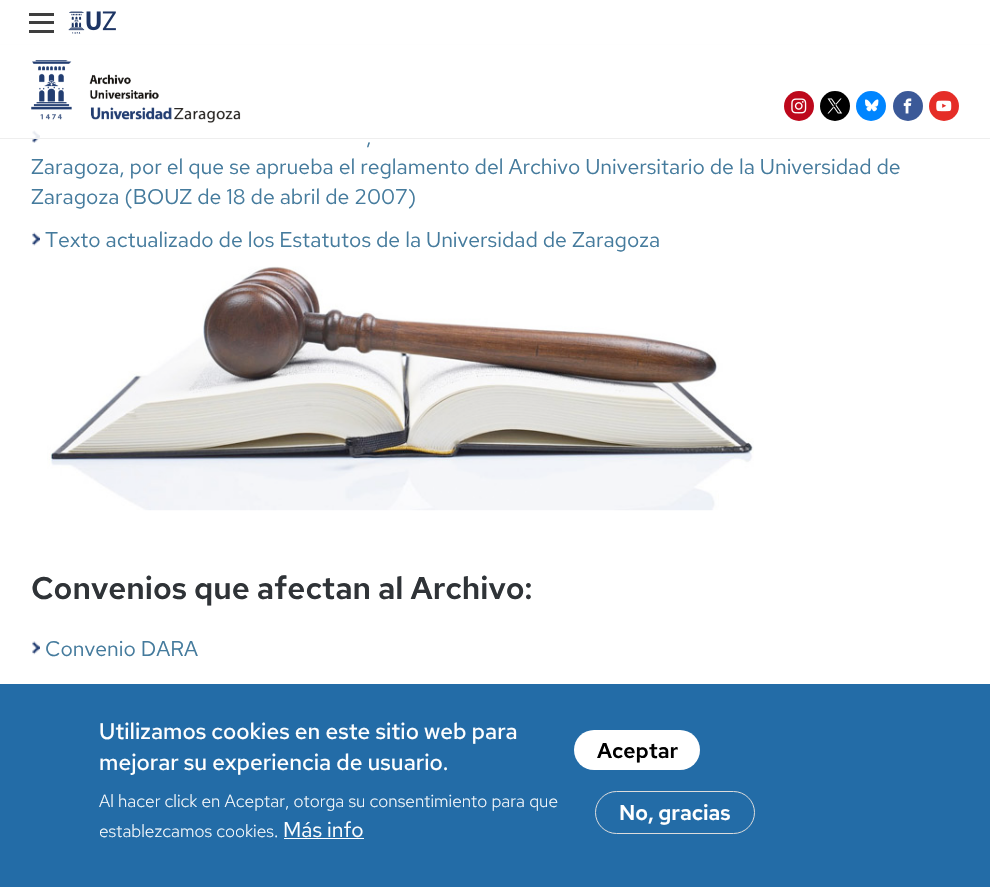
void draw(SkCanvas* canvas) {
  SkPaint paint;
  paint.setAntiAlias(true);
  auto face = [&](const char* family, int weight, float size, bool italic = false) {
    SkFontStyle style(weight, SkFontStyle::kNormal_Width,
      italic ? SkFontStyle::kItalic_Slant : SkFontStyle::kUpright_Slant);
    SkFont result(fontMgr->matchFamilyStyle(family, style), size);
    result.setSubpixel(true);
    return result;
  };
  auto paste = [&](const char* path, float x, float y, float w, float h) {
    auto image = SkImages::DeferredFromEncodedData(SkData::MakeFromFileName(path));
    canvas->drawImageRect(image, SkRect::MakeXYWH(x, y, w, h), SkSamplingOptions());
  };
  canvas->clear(0xffffffff);
  {
    const struct { float x, y, w, h; SkColor color; } items[] = {
      {0, 44, 990, 1, 0xffeeeeee},
      {29, 21, 25, 3, 0xff3e3e3e},
      {29, 13, 25, 3, 0xff3e3e3e},
      {29, 30, 25, 3, 0xff3e3e3e},
    };
    for (auto [x, y, w, h, color] : items) {
      paint.setColor(color);
      canvas->drawRect(SkRect::MakeXYWH(x, y, w, h), paint);
    }
  }
  paste("img/1.png", 68, 11, 48, 23);
  paste("img/8.png", 32, 130, 8, 13);
  paint.setColor(0xe3ffffff);
  canvas->drawRect(SkRect::MakeXYWH(0, 44, 990, 94), paint);
  paint.setColor(0xffeeeeee);
  canvas->drawRect(SkRect::MakeXYWH(0, 138, 990, 1), paint);
  paste("img/2.png", 31, 60, 210, 63);
  paint.setColor(0xffbd081c);
  canvas->drawCircle(799, 106, 15, paint);
  paste("img/3.png", 791, 98, 16, 16);
  paint.setColor(0xff000000);
  canvas->drawCircle(835, 106, 15, paint);
  paste("img/4.png", 827, 98, 16, 16);
  paint.setColor(0xff0085ff);
  canvas->drawCircle(871, 106, 15, paint);
  paste("img/5.png", 865, 99, 14, 13);
  paint.setColor(0xff3b5998);
  canvas->drawCircle(908, 106, 15, paint);
  paste("img/6.png", 903, 98, 9, 16);
  paint.setColor(0xffe52d27);
  canvas->drawCircle(944, 106, 15, paint);
  paste("img/7.png", 936, 100, 16, 12);
  paste("img/9.png", 32, 232, 8, 14);
  paste("img/10.png", 47, 266, 707, 245);
  paste("img/11.png", 32, 641, 8, 14);
  paint.setColor(0xff236ca7);
  canvas->drawRect(SkRect::MakeXYWH(0, 684, 990, 203), paint);
  paint.setColor(0xffffffff);
  canvas->drawRect(SkRect::MakeXYWH(284, 838, 80, 1), paint);
  canvas->drawRoundRect(SkRect::MakeXYWH(574, 730, 126, 40), 20, 20, paint);
  paint.setStroke(true);
  paint.setStrokeWidth(1);
  paint.setColor(0xffdcdcdc);
  canvas->drawRoundRect(SkRect::MakeXYWH(595.5f, 791.5f, 159, 42), 21, 21, paint);
  auto f0 = face("Red Hat Text", 400, 21.25f);
  paint.setStroke(false);
  paint.setColor(0xff457b9d);
  {
    const struct { const char* s; float x, y; } items[] = {
      {",", 366, 144},
      {"Zaragoza, por el que se aprueba el reglamento del Archivo Universitario de la Universidad de", 31, 174},
      {"Zaragoza (BOUZ de 18 de abril de 2007)", 31, 204},
      {"Texto actualizado de los Estatutos de la Universidad de Zaragoza", 45, 247},
    };
    for (auto [s, x, y] : items) {
      canvas->drawString(s, x, y, f0, paint);
    }
  }
  auto f1 = face("Red Hat Text", 600, 31.25f);
  paint.setColor(0xff2f3337);
  canvas->drawString("Convenios que afectan al Archivo:", 31, 599, f1, paint);
  paint.setColor(0xff457b9d);
  canvas->drawString("Convenio DARA", 45, 656, f0, paint);
  auto f2 = face("Red Hat Text", 500, 22.5f);
  paint.setColor(0xffffffff);
  canvas->drawString("Utilizamos cookies en este sitio web para", 99, 739, f2, paint);
  canvas->drawString("mejorar su experiencia de usuario.", 99, 770, f2, paint);
  auto f3 = face("Red Hat Text", 300, 17.5f);
  canvas->drawString("Al hacer click en Aceptar, otorga su consentimiento para que", 99, 807, f3, paint);
  canvas->drawString("establezcamos cookies.", 99, 837, f3, paint);
  canvas->drawString("Más info", 283, 837, f0, paint);
  auto f4 = face("Red Hat Text", 600, 21.25f);
  paint.setColor(0xff000000);
  canvas->drawString("Aceptar", 597, 758, f4, paint);
  paint.setColor(0xffffffff);
  canvas->drawString("No, gracias", 619, 820, f4, paint);
}
